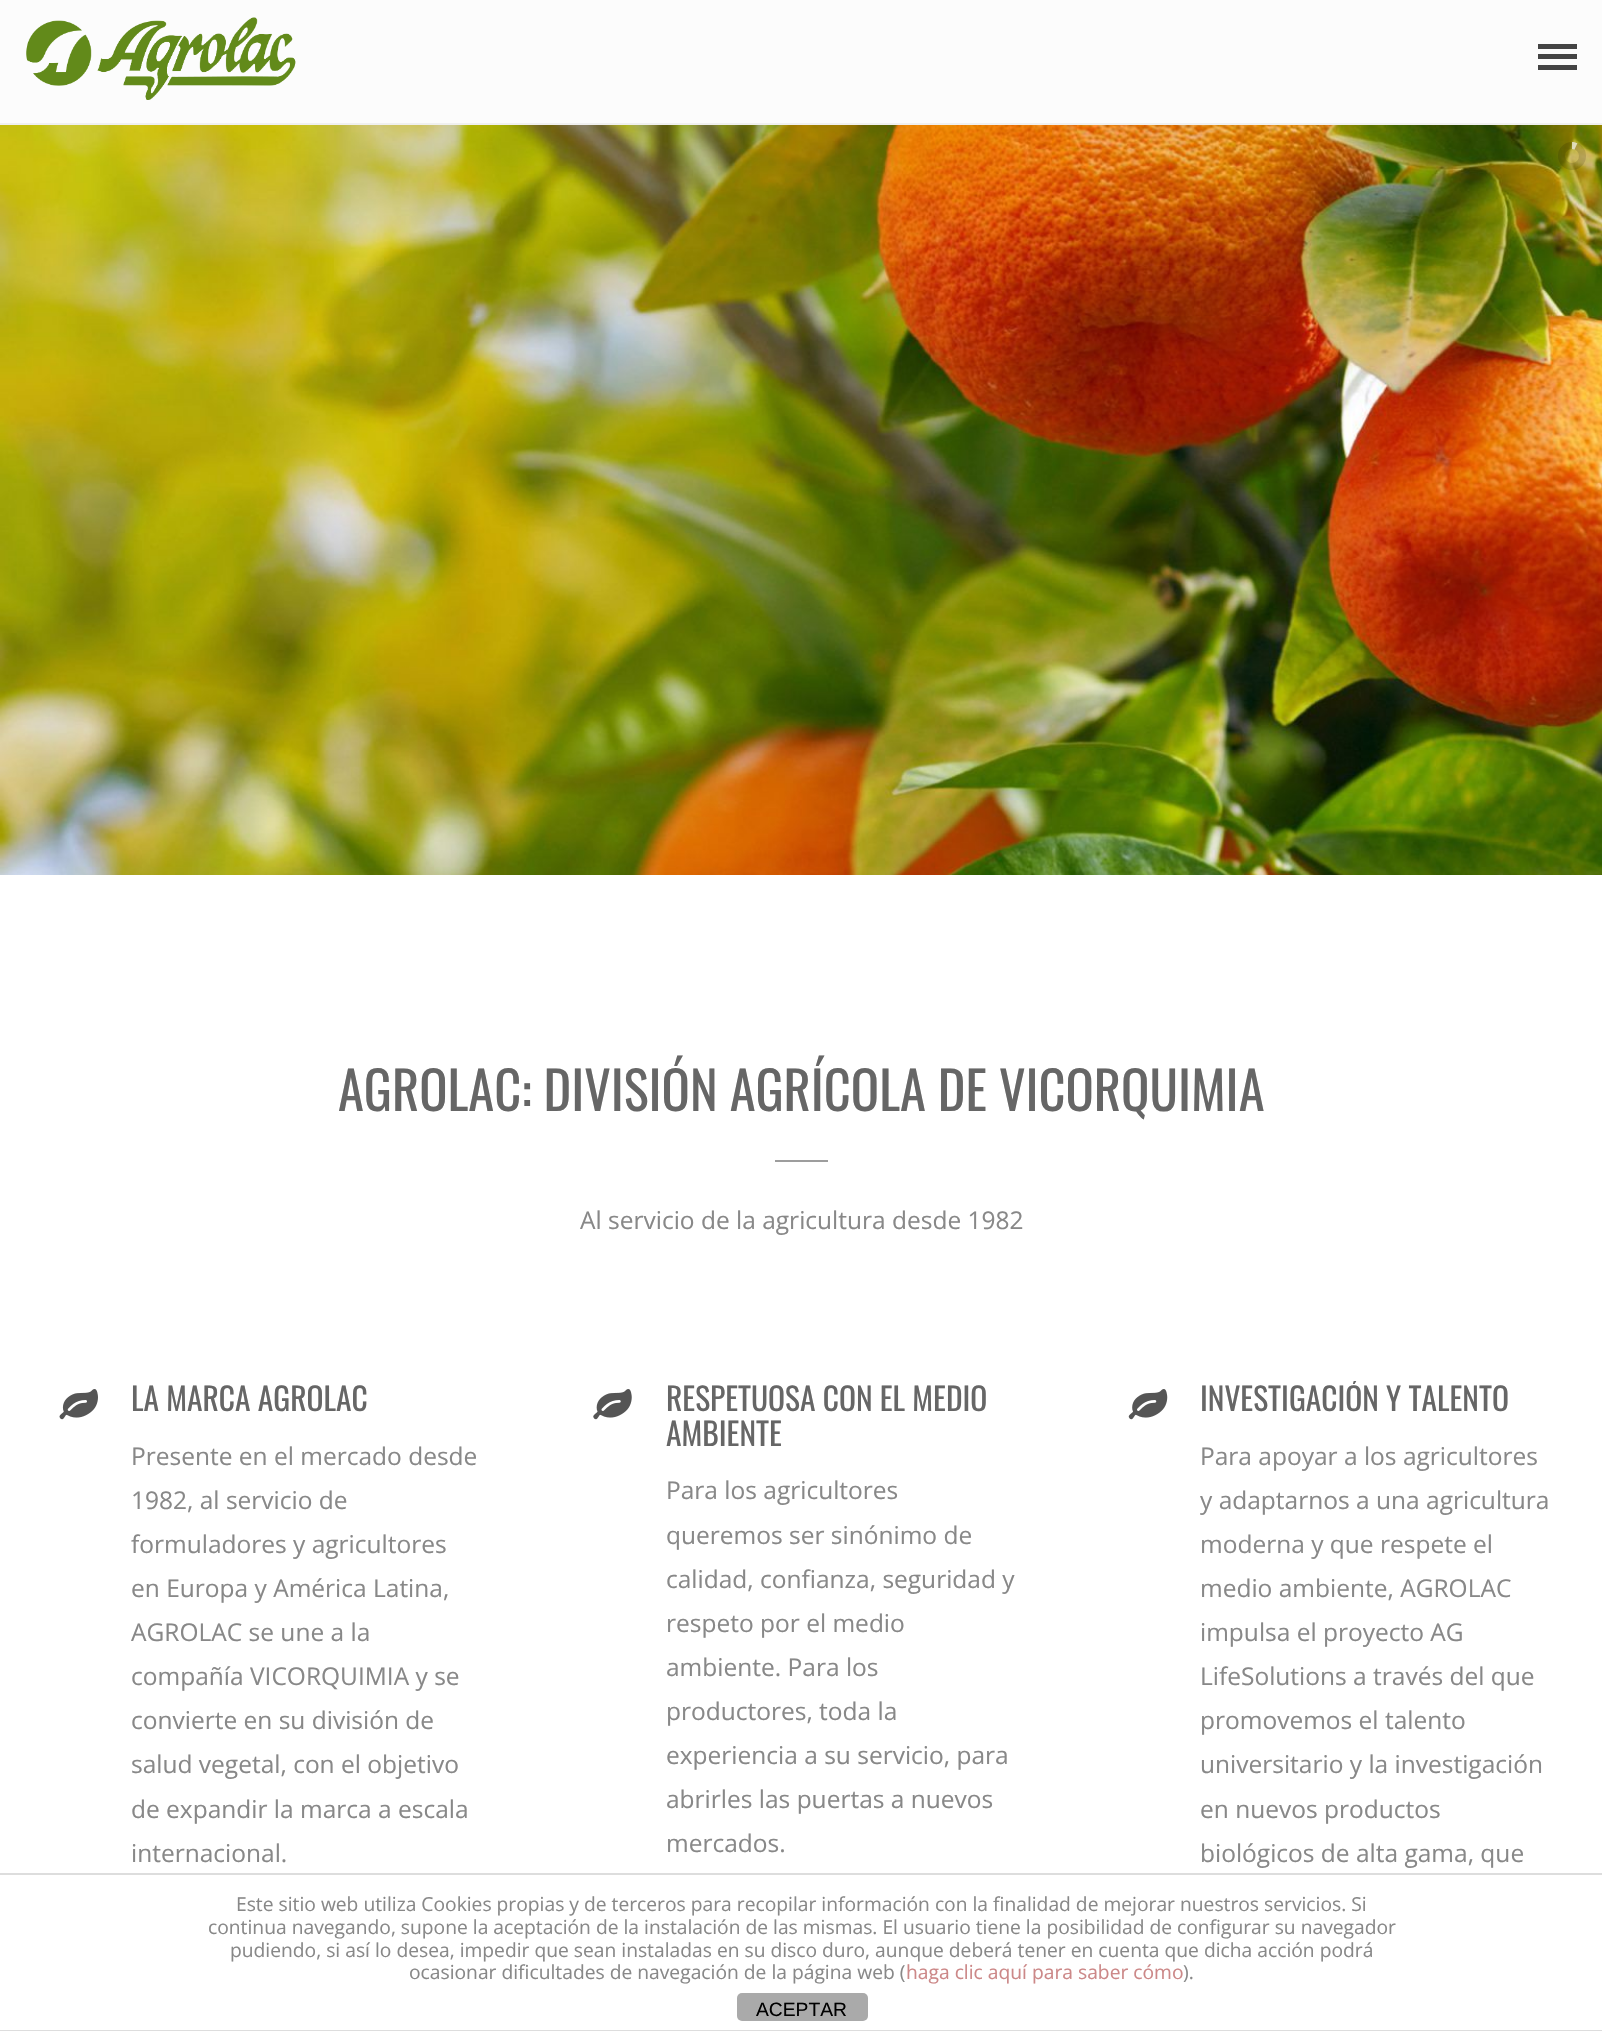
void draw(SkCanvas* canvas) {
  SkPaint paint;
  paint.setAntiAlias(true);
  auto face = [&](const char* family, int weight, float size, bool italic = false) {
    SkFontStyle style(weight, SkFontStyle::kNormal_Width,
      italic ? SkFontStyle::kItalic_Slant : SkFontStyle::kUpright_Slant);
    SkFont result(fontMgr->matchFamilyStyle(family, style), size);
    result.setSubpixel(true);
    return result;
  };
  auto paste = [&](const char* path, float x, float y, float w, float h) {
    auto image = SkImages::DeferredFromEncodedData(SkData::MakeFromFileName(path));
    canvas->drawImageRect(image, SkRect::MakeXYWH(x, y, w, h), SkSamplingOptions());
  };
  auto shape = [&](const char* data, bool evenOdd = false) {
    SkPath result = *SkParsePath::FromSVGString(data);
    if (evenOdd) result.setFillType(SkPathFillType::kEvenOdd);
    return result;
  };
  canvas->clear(0xffffffff);
  paint.setColor(0xfff0f0f0);
  canvas->drawRect(SkRect::MakeXYWH(0, 123, 1602, 2), paint);
  paint.setColor(0xfffcfcfc);
  canvas->drawRect(SkRect::MakeXYWH(0, 0, 1602, 123), paint);
  paste("img/1.png", 26, 17, 270, 83);
  {
    const struct { float x, y, w, h; SkColor color; } items[] = {
      {1538, 44, 39, 5, 0xff444444},
      {1538, 54, 39, 5, 0xff444444},
      {1538, 65, 39, 5, 0xff444444},
    };
    for (auto [x, y, w, h, color] : items) {
      paint.setColor(color);
      canvas->drawRect(SkRect::MakeXYWH(x, y, w, h), paint);
    }
  }
  paste("img/2.png", 0, 125, 1602, 750);
  paint.setStroke(true);
  paint.setStrokeWidth(7);
  paint.setColor(0x21000000);
  canvas->drawCircle(1572, 156, 10.5f, paint);
  canvas->save();
  canvas->clipRect(SkRect::MakeXYWH(1572, 142, 14, 28));
  canvas->clipPath(shape("M1565 137L1577.5 143L1565.5 168.5L1553 162.5Z"), true);
  paint.setColor(0xa6ffffff);
  canvas->drawPath(shape("M1576 146.5C1588.5 152 1579.5 171 1567 165C1554.5 159.5 1563.5 140.5 1576 146.5Z"), paint);
  canvas->restore();
  paint.setStroke(false);
  paint.setColor(0xff9d9d9d);
  canvas->drawRect(SkRect::MakeXYWH(775, 1160, 53, 2), paint);
  paste("img/3.png", 59, 1389, 39, 31);
  paste("img/4.png", 593, 1389, 39, 31);
  paste("img/5.png", 1128, 1389, 40, 31);
  paint.setColor(0xffdddddd);
  canvas->drawRect(SkRect::MakeXYWH(0, 1873, 1602, 2), paint);
  canvas->drawRect(SkRect::MakeXYWH(0, 2030, 1602, 1), paint);
  paint.setColor(0xffaaaaaa);
  canvas->drawRoundRect(SkRect::MakeXYWH(737, 1993, 131, 28), 5, 5, paint);
  auto f0 = face("Oswald", 400, 52.5f);
  paint.setColor(0xff666666);
  canvas->drawString("AGROLAC: DIVISIÓN AGRÍCOLA DE VICORQUIMIA", 338, 1111, f0, paint);
  auto f1 = face("Open Sans", 400, 24.5f);
  paint.setColor(0xff888888);
  canvas->drawString("Al servicio de la agricultura desde 1982", 580, 1229, f1, paint);
  auto f2 = face("Oswald", 400, 31.5f);
  paint.setColor(0xff666666);
  canvas->drawString("LA MARCA AGROLAC", 131, 1411, f2, paint);
  paint.setColor(0xff888888);
  {
    const struct { const char* s; float x, y; } items[] = {
      {"Presente en el mercado desde", 131, 1465},
      {"1982, al servicio de", 131, 1509},
      {"formuladores y agricultores", 131, 1553},
      {"en Europa y América Latina,", 131, 1597},
      {"AGROLAC se une a la", 131, 1641},
      {"compañía VICORQUIMIA y se", 131, 1685},
      {"convierte en su división de", 131, 1729},
      {"salud vegetal, con el objetivo", 131, 1773},
      {"de expandir la marca a escala", 131, 1818},
      {"internacional.", 131, 1862},
    };
    for (auto [s, x, y] : items) {
      canvas->drawString(s, x, y, f1, paint);
    }
  }
  paint.setColor(0xff666666);
  canvas->drawString("RESPETUOSA CON EL MEDIO", 666, 1411, f2, paint);
  canvas->drawString("AMBIENTE", 666, 1446, f2, paint);
  paint.setColor(0xff888888);
  {
    const struct { const char* s; float x, y; } items[] = {
      {"Para los agricultores", 666, 1499},
      {"queremos ser sinónimo de", 666, 1544},
      {"calidad, confianza, seguridad y", 666, 1588},
      {"respeto por el medio", 666, 1632},
      {"ambiente. Para los", 666, 1676},
      {"productores, toda la", 666, 1720},
      {"experiencia a su servicio, para", 666, 1764},
      {"abrirles las puertas a nuevos", 666, 1808},
      {"mercados.", 666, 1852},
    };
    for (auto [s, x, y] : items) {
      canvas->drawString(s, x, y, f1, paint);
    }
  }
  canvas->save();
  canvas->clipRect(SkRect::MakeXYWH(1096, 1381, 481, 626));
  paint.setColor(0xff666666);
  canvas->drawString("INVESTIGACIÓN Y TALENTO", 1200, 1411, f2, paint);
  canvas->restore();
  paint.setColor(0xff888888);
  {
    const struct { const char* s; float x, y; } items[] = {
      {"Para apoyar a los agricultores", 1200, 1465},
      {"y adaptarnos a una agricultura", 1200, 1509},
      {"moderna y que respete el", 1200, 1553},
      {"medio ambiente, AGROLAC", 1200, 1597},
      {"impulsa el proyecto AG", 1200, 1641},
      {"LifeSolutions a través del que", 1200, 1685},
      {"promovemos el talento", 1200, 1729},
      {"universitario y la investigación", 1200, 1773},
      {"en nuevos productos", 1200, 1818},
      {"biológicos de alta gama, que", 1200, 1862},
    };
    for (auto [s, x, y] : items) {
      canvas->drawString(s, x, y, f1, paint);
    }
  }
  auto f3 = face("Open Sans", 400, 19.25f);
  {
    const struct { const char* s; float x, y; } items[] = {
      {"Este sitio web utiliza Cookies propias y de terceros para recopilar información con la finalidad de mejorar nuestros servicios. Si", 236, 1911},
      {"continua navegando, supone la aceptación de la instalación de las mismas. El usuario tiene la posibilidad de configurar su navegador", 208, 1934},
      {"pudiendo, si así lo desea, impedir que sean instaladas en su disco duro, aunque deberá tener en cuenta que dicha acción podrá", 230, 1957},
      {"ocasionar dificultades de navegación de la página web (", 409, 1979},
    };
    for (auto [s, x, y] : items) {
      canvas->drawString(s, x, y, f3, paint);
    }
  }
  paint.setColor(0xffcc8888);
  canvas->drawString("haga clic aquí para saber cómo", 906, 1979, f3, paint);
  paint.setColor(0xff888888);
  canvas->drawString(").", 1183, 1979, f3, paint);
  auto f4 = face("Liberation Sans", 400, 19.25f);
  paint.setColor(0xff000000);
  canvas->drawString("ACEPTAR", 756, 2016, f4, paint);
}
